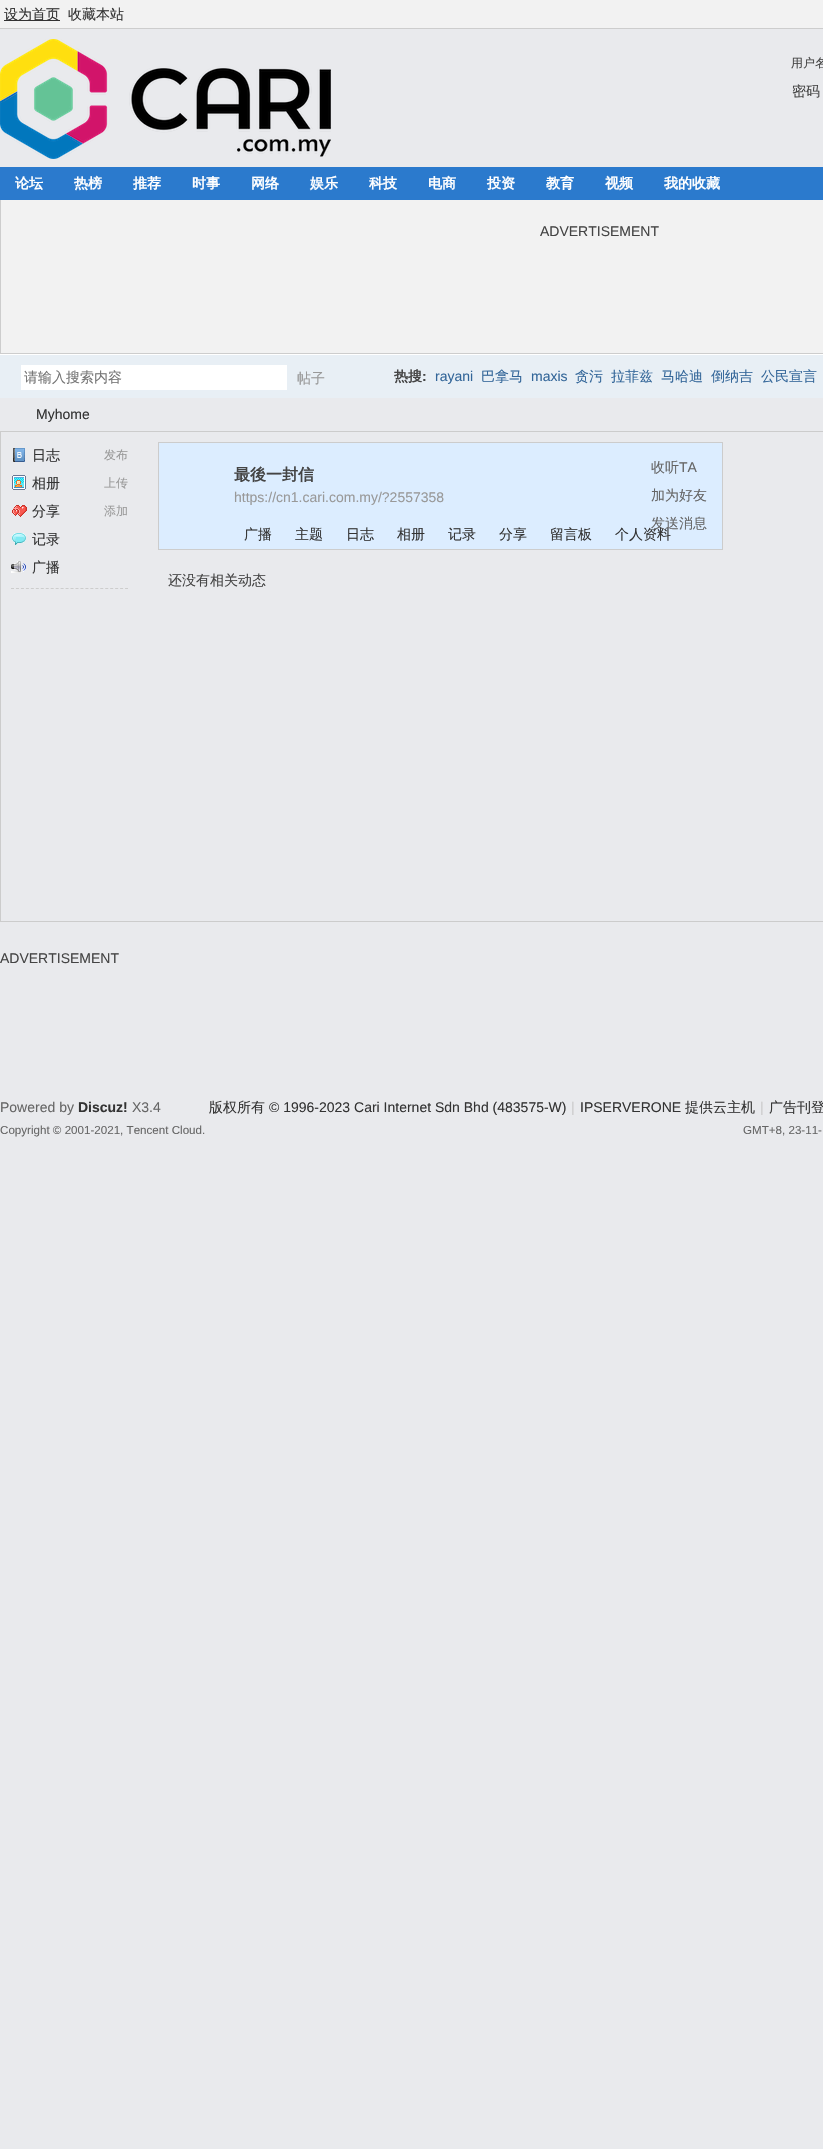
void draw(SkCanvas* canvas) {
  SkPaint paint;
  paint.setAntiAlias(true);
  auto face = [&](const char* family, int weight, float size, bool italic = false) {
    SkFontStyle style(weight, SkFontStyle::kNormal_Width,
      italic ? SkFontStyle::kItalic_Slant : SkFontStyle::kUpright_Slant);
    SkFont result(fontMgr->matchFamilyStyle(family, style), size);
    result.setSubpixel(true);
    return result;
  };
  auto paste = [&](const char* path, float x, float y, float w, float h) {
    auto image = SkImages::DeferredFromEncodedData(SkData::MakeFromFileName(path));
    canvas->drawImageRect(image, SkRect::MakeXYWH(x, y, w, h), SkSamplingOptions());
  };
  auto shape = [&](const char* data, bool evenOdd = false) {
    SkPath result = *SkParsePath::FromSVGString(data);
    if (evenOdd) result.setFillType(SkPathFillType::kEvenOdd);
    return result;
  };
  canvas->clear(0xffe9eaed);
  {
    const struct { float x, y, w, h; SkColor color; } items[] = {
      {0, 0, 823, 28, 0xfff2f2f2},
      {0, 28, 823, 1, 0xffcdcdcd},
      {4, 20, 56, 1, 0xff333333},
    };
    for (auto [x, y, w, h, color] : items) {
      paint.setColor(color);
      canvas->drawRect(SkRect::MakeXYWH(x, y, w, h), paint);
    }
  }
  paste("img/1.png", 0, 39, 331, 120);
  {
    const struct { float x, y, w, h; SkColor color; } items[] = {
      {0, 167, 823, 33, 0xff2b7acd},
      {1, 200, 822, 153, 0xfff2f2f2},
      {0, 353, 823, 1, 0xffcdcdcd},
      {0, 200, 1, 154, 0xffcdcdcd},
      {0, 355, 823, 43, 0xffe8eff5},
      {0, 354, 823, 1, 0xffffffff},
      {21, 365, 266, 25, 0xffffffff},
    };
    for (auto [x, y, w, h, color] : items) {
      paint.setColor(color);
      canvas->drawRect(SkRect::MakeXYWH(x, y, w, h), paint);
    }
  }
  paint.setStroke(true);
  paint.setStrokeWidth(1);
  paint.setColor(0xffcccccc);
  canvas->drawRect(SkRect::MakeXYWH(0.5f, 431.5f, 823, 490), paint);
  paste("img/2.png", 13, 448, 12, 14);
  paste("img/3.png", 12, 475, 14, 15);
  paste("img/4.png", 12, 505, 15, 12);
  paste("img/5.png", 12, 533, 14, 12);
  paste("img/6.png", 11, 561, 15, 12);
  paint.setColor(0xffcdcdcd);
  paint.setPathEffect(SkDashPathEffect::Make({{3, 1.96f}}, 0));
  canvas->drawPath(shape("M11 588.5H128"), paint);
  paint.setPathEffect(nullptr);
  paint.setStroke(false);
  {
    const struct { float x, y, w, h; SkColor color; } items[] = {
      {159, 443, 563, 106, 0xffdcedff},
      {158, 442, 565, 1, 0xffcccccc},
      {722, 442, 1, 108, 0xffcccccc},
      {158, 442, 1, 108, 0xffcccccc},
      {159, 549, 563, 1, 0xffcdcdcd},
    };
    for (auto [x, y, w, h, color] : items) {
      paint.setColor(color);
      canvas->drawRect(SkRect::MakeXYWH(x, y, w, h), paint);
    }
  }
  auto f0 = face("WenQuanYi Zen Hei", 500, 14);
  paint.setColor(0xff333333);
  canvas->drawString("设为首页", 4, 19, f0, paint);
  canvas->drawString("收藏本站", 68, 19, f0, paint);
  auto f1 = face("WenQuanYi Zen Hei", 500, 12);
  paint.setColor(0xff444444);
  canvas->drawString("用户名", 791, 67, f1, paint);
  canvas->drawString("密码", 792, 96, f0, paint);
  auto f2 = face("WenQuanYi Zen Hei", 700, 14);
  paint.setColor(0xffffffff);
  {
    const struct { const char* s; float x, y; } items[] = {
      {"论坛", 15, 188},
      {"热榜", 74, 188},
      {"推荐", 133, 188},
      {"时事", 192, 188},
      {"网络", 251, 188},
      {"娱乐", 310, 188},
      {"科技", 369, 188},
      {"电商", 428, 188},
      {"投资", 487, 188},
      {"教育", 546, 188},
      {"视频", 605, 188},
      {"我的收藏", 664, 188},
    };
    for (auto [s, x, y] : items) {
      canvas->drawString(s, x, y, f2, paint);
    }
  }
  auto f3 = face("Liberation Sans", 400, 14);
  paint.setColor(0xff444444);
  canvas->drawString("ADVERTISEMENT", 540, 236, f3, paint);
  paint.setColor(0xff757575);
  canvas->drawString("请输入搜索内容", 24, 382, f0, paint);
  paint.setColor(0xff999999);
  canvas->drawString("帖子", 297, 383, f0, paint);
  paint.setColor(0xff444444);
  canvas->drawString("热搜", 394, 381, f2, paint);
  auto f4 = face("Liberation Sans", 700, 14);
  canvas->drawString(":", 422, 381, f4, paint);
  paint.setColor(0xff336699);
  canvas->drawString("rayani", 435, 381, f3, paint);
  canvas->drawString("巴拿马", 481, 381, f0, paint);
  canvas->drawString("maxis", 531, 381, f3, paint);
  {
    const struct { const char* s; float x, y; } items[] = {
      {"贪污", 575, 381},
      {"拉菲兹", 611, 381},
      {"马哈迪", 661, 381},
      {"倒纳吉", 711, 381},
      {"公民宣言", 761, 381},
    };
    for (auto [s, x, y] : items) {
      canvas->drawString(s, x, y, f0, paint);
    }
  }
  paint.setColor(0xff333333);
  canvas->drawString("Myhome", 36, 419, f3, paint);
  canvas->drawString("日志", 32, 460, f0, paint);
  paint.setColor(0xff999999);
  canvas->drawString("发布", 104, 459, f1, paint);
  paint.setColor(0xff333333);
  canvas->drawString("相册", 32, 488, f0, paint);
  paint.setColor(0xff999999);
  canvas->drawString("上传", 104, 487, f1, paint);
  paint.setColor(0xff333333);
  canvas->drawString("分享", 32, 516, f0, paint);
  paint.setColor(0xff999999);
  canvas->drawString("添加", 104, 515, f1, paint);
  paint.setColor(0xff333333);
  canvas->drawString("记录", 32, 544, f0, paint);
  canvas->drawString("广播", 32, 572, f0, paint);
  auto f5 = face("WenQuanYi Zen Hei", 700, 16);
  paint.setColor(0xff444444);
  canvas->drawString("最後一封信", 234, 480, f5, paint);
  paint.setColor(0xff999999);
  canvas->drawString("https://cn1.cari.com.my/?2557358", 234, 502, f3, paint);
  paint.setColor(0xff666666);
  canvas->drawString("收听", 651, 472, f0, paint);
  canvas->drawString("TA", 679, 472, f3, paint);
  canvas->drawString("加为好友", 651, 500, f0, paint);
  canvas->drawString("发送消息", 651, 528, f0, paint);
  paint.setColor(0xff333333);
  {
    const struct { const char* s; float x, y; } items[] = {
      {"广播", 244, 539},
      {"主题", 295, 539},
      {"日志", 346, 539},
      {"相册", 397, 539},
      {"记录", 448, 539},
      {"分享", 499, 539},
      {"留言板", 550, 539},
      {"个人资料", 615, 539},
    };
    for (auto [s, x, y] : items) {
      canvas->drawString(s, x, y, f0, paint);
    }
  }
  paint.setColor(0xff444444);
  canvas->drawString("还没有相关动态", 168, 585, f0, paint);
  canvas->drawString("ADVERTISEMENT", 0, 963, f3, paint);
  paint.setColor(0xff666666);
  canvas->drawString("Powered by", 0, 1112, f3, paint);
  paint.setColor(0xff333333);
  canvas->drawString("Discuz!", 78, 1112, f4, paint);
  paint.setColor(0xff666666);
  canvas->drawString("X3.4", 132, 1112, f3, paint);
  auto f6 = face("Liberation Sans", 400, 11.6f);
  canvas->drawString("Copyright © 2001-2021, Tencent Cloud.", 0, 1134, f6, paint);
  paint.setColor(0xff333333);
  canvas->drawString("版权所有", 209, 1112, f0, paint);
  canvas->drawString("© 1996-2023 Cari Internet Sdn Bhd (483575-W)", 269, 1112, f3, paint);
  paint.setColor(0xffcccccc);
  canvas->drawString("|", 571, 1112, f3, paint);
  paint.setColor(0xff333333);
  canvas->drawString("IPSERVERONE", 580, 1112, f3, paint);
  canvas->drawString("提供云主机", 685, 1112, f0, paint);
  paint.setColor(0xffcccccc);
  canvas->drawString("|", 760, 1112, f3, paint);
  paint.setColor(0xff333333);
  canvas->drawString("广告刊登", 769, 1112, f0, paint);
  paint.setColor(0xff666666);
  canvas->drawString("GMT+8, 23-11-", 743, 1134, f6, paint);
}
